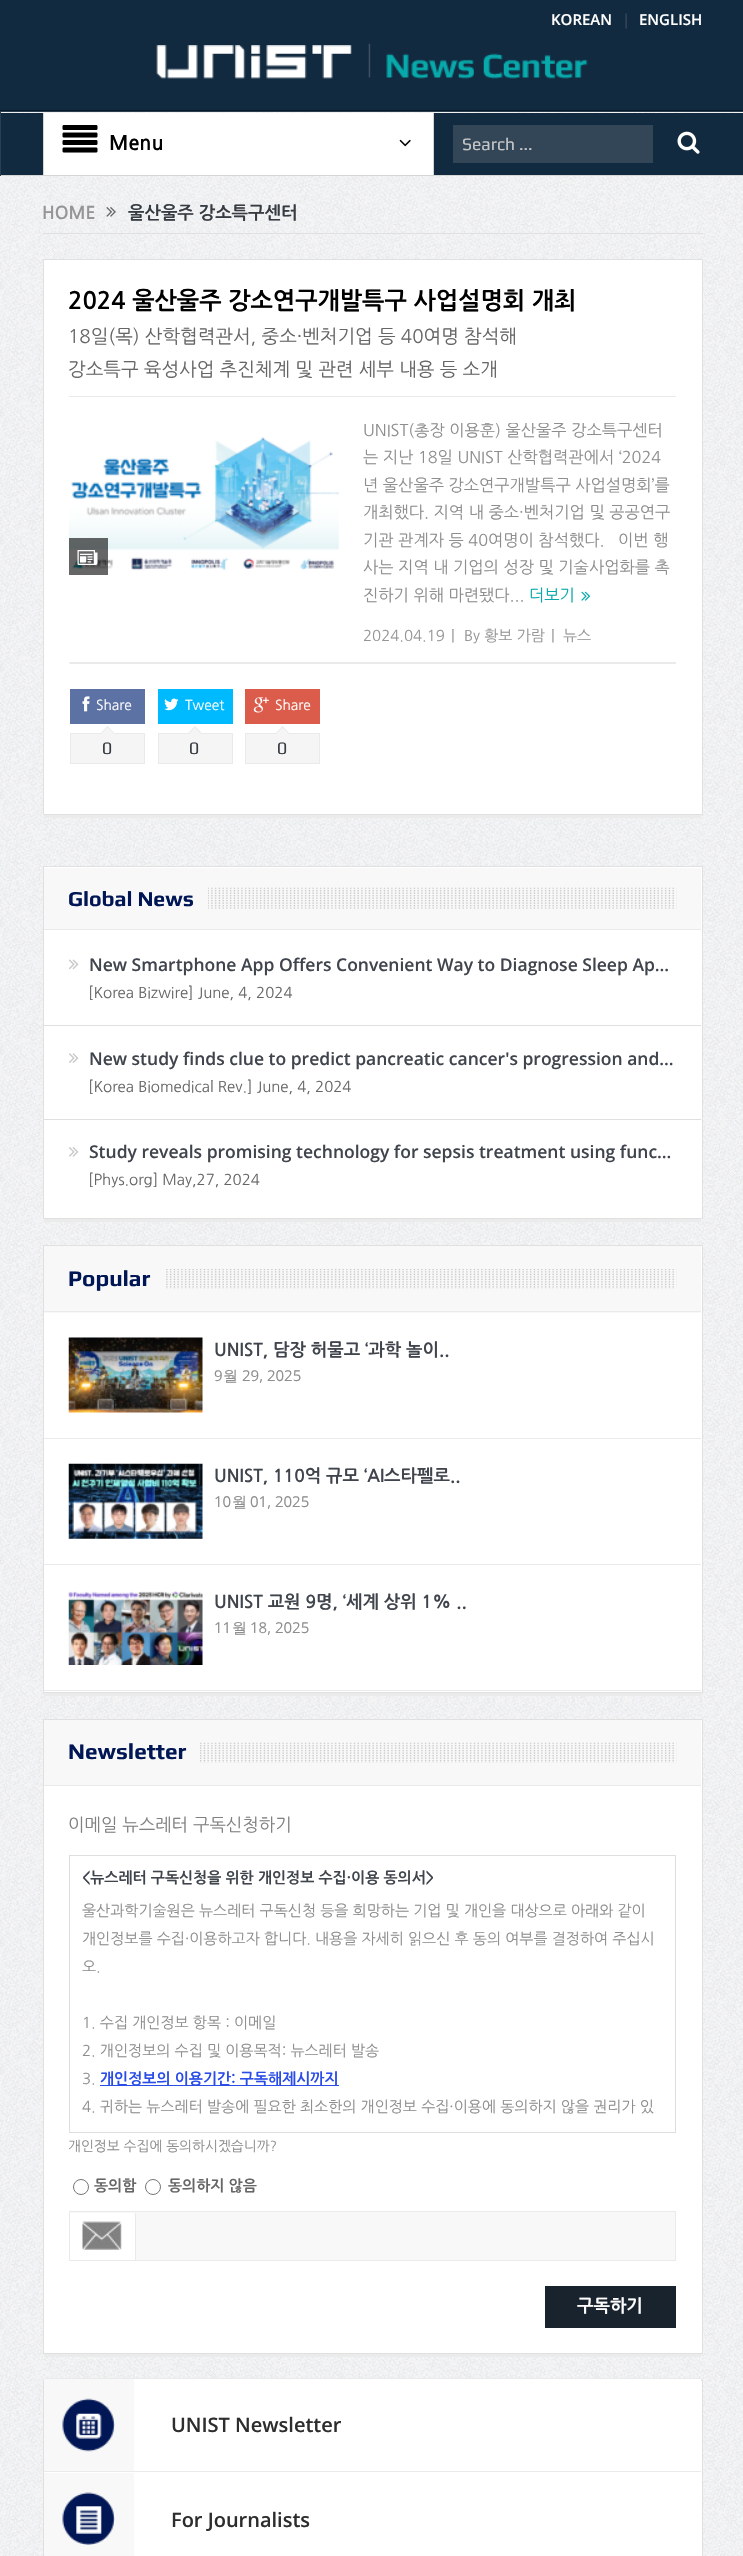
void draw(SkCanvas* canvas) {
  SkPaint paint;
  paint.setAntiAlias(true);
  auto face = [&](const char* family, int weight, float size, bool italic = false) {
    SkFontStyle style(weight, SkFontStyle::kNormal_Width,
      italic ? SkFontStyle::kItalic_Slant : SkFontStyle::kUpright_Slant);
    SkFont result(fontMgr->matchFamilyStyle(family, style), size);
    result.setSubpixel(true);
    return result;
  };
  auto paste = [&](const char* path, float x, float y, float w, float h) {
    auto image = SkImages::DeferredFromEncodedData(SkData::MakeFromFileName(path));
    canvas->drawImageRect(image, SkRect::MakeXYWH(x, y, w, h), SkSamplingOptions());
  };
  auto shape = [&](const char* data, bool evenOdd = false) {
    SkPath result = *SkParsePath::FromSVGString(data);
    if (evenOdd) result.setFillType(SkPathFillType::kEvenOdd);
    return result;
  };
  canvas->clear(0xffffffff);
  paste("img/1.png", 0, 112, 743, 2444);
  paint.setColor(0xff122a40);
  canvas->drawRect(SkRect::MakeXYWH(0, 0, 743, 110), paint);
  paint.setColor(0xff081928);
  canvas->drawRect(SkRect::MakeXYWH(0, 110, 743, 1), paint);
  paste("img/2.png", 156, 45, 196, 34);
  paste("img/3.png", 368, 43, 220, 36);
  paint.setStroke(true);
  paint.setStrokeWidth(1);
  paint.setColor(0xff2a3e51);
  canvas->drawRect(SkRect::MakeXYWH(0.5f, 111.5f, 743, 64), paint);
  paint.setStroke(false);
  {
    const struct { float x, y, w, h; SkColor color; } items[] = {
      {1, 113, 742, 62, 0xff122a40},
      {1, 175, 742, 1, 0xffd4d5d5},
      {44, 113, 389, 62, 0xffffffff},
      {433, 113, 1, 62, 0xffd4d5d5},
      {43, 113, 1, 62, 0xffd4d5d5},
    };
    for (auto [x, y, w, h, color] : items) {
      paint.setColor(color);
      canvas->drawRect(SkRect::MakeXYWH(x, y, w, h), paint);
    }
  }
  paste("img/4.png", 62, 125, 36, 28);
  paste("img/5.png", 399, 139, 12, 8);
  paint.setColor(0xff334657);
  canvas->drawRect(SkRect::MakeXYWH(453, 125, 200, 38), paint);
  paste("img/6.png", 677, 131, 23, 23);
  paint.setColor(0xffe0e0e0);
  canvas->drawRect(SkRect::MakeXYWH(43, 233, 660, 1), paint);
  paste("img/7.png", 106, 207, 10, 10);
  paint.setColor(0xffffffff);
  canvas->drawRect(SkRect::MakeXYWH(43.5f, 259.5f, 659, 555), paint);
  paint.setStroke(true);
  paint.setColor(0xffe0e0e0);
  canvas->drawRect(SkRect::MakeXYWH(43.5f, 259.5f, 659, 555), paint);
  paint.setStroke(false);
  paint.setColor(0xffeaeaea);
  canvas->drawRect(SkRect::MakeXYWH(69, 396, 607, 1), paint);
  paste("img/8.png", 68, 437, 271, 134);
  paint.setColor(0x99000000);
  canvas->drawRect(SkRect::MakeXYWH(69, 538, 39, 37), paint);
  paste("img/9.png", 77, 550, 21, 15);
  paste("img/10.png", 581, 591, 10, 10);
  paint.setColor(0xffeaeaea);
  canvas->drawPath(shape("M69 662H676V664H70Z"), paint);
  paint.setColor(0xff5d72a4);
  canvas->drawRect(SkRect::MakeXYWH(70, 689, 75, 35), paint);
  paste("img/11.png", 82, 696, 8, 16);
  paint.setColor(0xfff5f5f5);
  canvas->drawRect(SkRect::MakeXYWH(70.5f, 733.5f, 74, 30), paint);
  paint.setStroke(true);
  paint.setColor(0xffeaeaea);
  canvas->drawRect(SkRect::MakeXYWH(70.5f, 733.5f, 74, 30), paint);
  paint.setStroke(false);
  canvas->drawPath(shape("M115 734H100L107.5 726Z"), paint);
  paint.setColor(0xfff5f5f5);
  canvas->drawPath(shape("M114 734H101L107.5 727.5Z"), paint);
  paint.setColor(0xff00baff);
  canvas->drawRect(SkRect::MakeXYWH(158, 689, 75, 35), paint);
  paste("img/12.png", 164, 698, 15, 13);
  paint.setColor(0xfff5f5f5);
  canvas->drawRect(SkRect::MakeXYWH(158.5f, 733.5f, 74, 30), paint);
  paint.setStroke(true);
  paint.setColor(0xffeaeaea);
  canvas->drawRect(SkRect::MakeXYWH(158.5f, 733.5f, 74, 30), paint);
  paint.setStroke(false);
  canvas->drawPath(shape("M202.5 734H187.5L195 726Z"), paint);
  paint.setColor(0xfff5f5f5);
  canvas->drawPath(shape("M201 734H189L195 727.5Z"), paint);
  paint.setColor(0xffdb5c4b);
  canvas->drawRect(SkRect::MakeXYWH(245, 689, 75, 35), paint);
  paste("img/13.png", 253, 697, 16, 16);
  paint.setColor(0xfff5f5f5);
  canvas->drawRect(SkRect::MakeXYWH(245.5f, 733.5f, 74, 30), paint);
  paint.setStroke(true);
  paint.setColor(0xffeaeaea);
  canvas->drawRect(SkRect::MakeXYWH(245.5f, 733.5f, 74, 30), paint);
  paint.setStroke(false);
  canvas->drawPath(shape("M290 734H275L282.5 726Z"), paint);
  paint.setColor(0xfff5f5f5);
  canvas->drawPath(shape("M289 734H276L282.5 727.5Z"), paint);
  paint.setColor(0xffebebeb);
  canvas->drawRect(SkRect::MakeXYWH(44, 815, 657, 3), paint);
  paint.setColor(0xffffffff);
  canvas->drawRect(SkRect::MakeXYWH(43.5f, 866.5f, 659, 352), paint);
  paint.setStroke(true);
  paint.setColor(0xffe0e0e0);
  canvas->drawRect(SkRect::MakeXYWH(43.5f, 866.5f, 659, 352), paint);
  paint.setStroke(false);
  paint.setColor(0xfff8f8f8);
  canvas->drawRect(SkRect::MakeXYWH(44, 868, 657, 61), paint);
  paint.setColor(0xffeaeaea);
  canvas->drawRect(SkRect::MakeXYWH(44, 929, 657, 1), paint);
  paste("img/14.png", 208, 887, 469, 22);
  paste("img/15.png", 69, 959, 10, 11);
  paint.setColor(0xffe0e0e0);
  canvas->drawRect(SkRect::MakeXYWH(44, 1025, 657, 1), paint);
  paste("img/16.png", 69, 1053, 10, 10);
  canvas->drawRect(SkRect::MakeXYWH(44, 1119, 657, 1), paint);
  paste("img/17.png", 69, 1147, 10, 10);
  paint.setColor(0xffebebeb);
  canvas->drawRect(SkRect::MakeXYWH(44, 1219, 657, 3), paint);
  paint.setColor(0xffffffff);
  canvas->drawRect(SkRect::MakeXYWH(43.5f, 1245.5f, 659, 447), paint);
  paint.setStroke(true);
  paint.setColor(0xffe0e0e0);
  canvas->drawRect(SkRect::MakeXYWH(43.5f, 1245.5f, 659, 447), paint);
  paint.setStroke(false);
  paint.setColor(0xfff8f8f8);
  canvas->drawRect(SkRect::MakeXYWH(44, 1246, 657, 67), paint);
  paint.setColor(0xffeaeaea);
  canvas->drawRect(SkRect::MakeXYWH(44, 1311, 657, 1), paint);
  paste("img/18.png", 166, 1269, 511, 20);
  canvas->drawRect(SkRect::MakeXYWH(44, 1690, 657, 1), paint);
  paste("img/19.png", 68, 1337, 135, 76);
  canvas->drawRect(SkRect::MakeXYWH(44, 1438, 657, 1), paint);
  paste("img/20.png", 68, 1463, 135, 76);
  canvas->drawRect(SkRect::MakeXYWH(44, 1564, 657, 1), paint);
  paste("img/21.png", 68, 1591, 135, 74);
  paint.setColor(0xffebebeb);
  canvas->drawRect(SkRect::MakeXYWH(44, 1693, 657, 3), paint);
  paint.setColor(0xffffffff);
  canvas->drawRect(SkRect::MakeXYWH(43.5f, 1719.5f, 659, 634), paint);
  paint.setStroke(true);
  paint.setColor(0xffe0e0e0);
  canvas->drawRect(SkRect::MakeXYWH(43.5f, 1719.5f, 659, 634), paint);
  paint.setStroke(false);
  paint.setColor(0xfff8f8f8);
  canvas->drawRect(SkRect::MakeXYWH(44, 1720, 657, 65), paint);
  paint.setColor(0xffeaeaea);
  canvas->drawRect(SkRect::MakeXYWH(44, 1785, 657, 1), paint);
  paste("img/22.png", 200, 1742, 477, 21);
  paint.setStroke(true);
  paint.setColor(0xffdedede);
  canvas->drawRect(SkRect::MakeXYWH(69.5f, 1855.5f, 606, 277), paint);
  paint.setStroke(false);
  paint.setColor(0xff2a4ce7);
  canvas->drawRect(SkRect::MakeXYWH(100, 2085, 239, 1), paint);
  paint.setStroke(true);
  paint.setColor(0xff767676);
  canvas->drawCircle(81, 2187, 7.5f, paint);
  canvas->drawCircle(153, 2187, 7.5f, paint);
  paint.setStroke(false);
  paint.setColor(0xfff8f8f8);
  canvas->drawRect(SkRect::MakeXYWH(69.5f, 2211.5f, 606, 49), paint);
  paint.setStroke(true);
  paint.setColor(0xffeaeaea);
  canvas->drawRect(SkRect::MakeXYWH(69.5f, 2211.5f, 606, 49), paint);
  paint.setStroke(false);
  paint.setColor(0xffffffff);
  canvas->drawRect(SkRect::MakeXYWH(70, 2213, 65, 47), paint);
  paste("img/23.png", 82, 2221, 40, 29);
  {
    const struct { float x, y, w, h; SkColor color; } items[] = {
      {135, 2213, 1, 47, 0xffeaeaea},
      {545, 2286, 131, 42, 0xff18232d},
      {44, 2354, 657, 3, 0xffebebeb},
    };
    for (auto [x, y, w, h, color] : items) {
      paint.setColor(color);
      canvas->drawRect(SkRect::MakeXYWH(x, y, w, h), paint);
    }
  }
  paint.setColor(0xffffffff);
  canvas->drawRect(SkRect::MakeXYWH(43.5f, 2380.5f, 659, 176), paint);
  paint.setStroke(true);
  paint.setColor(0xffe0e0e0);
  canvas->drawRect(SkRect::MakeXYWH(43.5f, 2380.5f, 659, 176), paint);
  paint.setStroke(false);
  {
    const struct { float x, y, w, h; SkColor color; } items[] = {
      {134, 2379, 567, 2, 0xffffffff},
      {44, 2378, 657, 1, 0xffeaeaea},
      {44, 2379, 90, 92, 0xfff8f8f8},
    };
    for (auto [x, y, w, h, color] : items) {
      paint.setColor(color);
      canvas->drawRect(SkRect::MakeXYWH(x, y, w, h), paint);
    }
  }
  paste("img/24.png", 62, 2398, 53, 54);
  paint.setColor(0xffeaeaea);
  canvas->drawRect(SkRect::MakeXYWH(44, 2471, 657, 1), paint);
  paint.setColor(0xfff8f8f8);
  canvas->drawRect(SkRect::MakeXYWH(44, 2473, 90, 83), paint);
  paste("img/25.png", 62, 2492, 53, 53);
  auto f0 = face("Open Sans", 600, 15);
  paint.setColor(0xffffffff);
  canvas->drawString("KOREAN", 551, 25, f0, paint);
  paint.setColor(0xff334657);
  canvas->drawString("|", 622, 25, f0, paint);
  paint.setColor(0xffffffff);
  canvas->drawString("ENGLISH", 639, 25, f0, paint);
  auto f1 = face("NanumGothic", 700, 20);
  paint.setColor(0xff000000);
  canvas->drawString("Menu", 109, 150, f1, paint);
  auto f2 = face("Play", 400, 17.5f);
  paint.setColor(0xffc6c6c6);
  canvas->drawString("Search ...", 462, 150, f2, paint);
  auto f3 = face("NanumGothic", 700, 17.5f);
  paint.setColor(0xff959595);
  canvas->drawString("HOME", 42, 219, f3, paint);
  paint.setColor(0xff373c43);
  canvas->drawString("울산울주 강소특구센터", 128, 219, f3, paint);
  auto f4 = face("NanumGothic", 700, 23.75f);
  paint.setColor(0xff000000);
  canvas->drawString("2024 울산울주 강소연구개발특구 사업설명회 개최", 68, 309, f4, paint);
  auto f5 = face("NanumGothic", 400, 18.75f);
  paint.setColor(0xff666666);
  canvas->drawString("18일(목) 산학협력관서, 중소·벤처기업 등 40여명 참석해", 68, 343, f5, paint);
  canvas->drawString("강소특구 육성사업 추진체계 및 관련 세부 내용 등 소개", 68, 376, f5, paint);
  canvas->save();
  canvas->clipRect(SkRect::MakeXYWH(364, 423, 312, 240));
  auto f6 = face("NanumGothic", 400, 16.25f);
  paint.setColor(0xff8e8e8e);
  canvas->drawString("UNIST(총장 이용훈) 울산울주 강소특구센터", 363, 436, f6, paint);
  canvas->restore();
  {
    const struct { const char* s; float x, y; } items[] = {
      {"는 지난 18일 UNIST 산학협력관에서 ‘2024", 363, 463},
      {"년 울산울주 강소연구개발특구 사업설명회’를", 363, 491},
      {"개최했다. 지역 내 중소·벤처기업 및 공공연구", 363, 518},
      {"기관 관계자 등 40여명이 참석했다.   이번 행", 363, 546},
      {"사는 지역 내 기업의 성장 및 기술사업화를 촉", 363, 573},
      {"진하기 위해 마련됐다...", 363, 601},
    };
    for (auto [s, x, y] : items) {
      canvas->drawString(s, x, y, f6, paint);
    }
  }
  paint.setColor(0xff08a9ab);
  canvas->drawString("더보기", 529, 601, f6, paint);
  auto f7 = face("NanumGothic", 400, 15);
  paint.setColor(0xff959595);
  {
    const struct { const char* s; float x, y; } items[] = {
      {"2024.04.19", 363, 641},
      {"|", 451, 641},
      {"By 황보 가람", 464, 641},
      {"|", 551, 641},
      {"뉴스", 563, 641},
    };
    for (auto [s, x, y] : items) {
      canvas->drawString(s, x, y, f7, paint);
    }
  }
  auto f8 = face("NanumGothic", 400, 13.75f);
  paint.setColor(0xffffffff);
  canvas->drawString("Share", 96, 710, f8, paint);
  paint.setColor(0xff373c43);
  canvas->drawString("0", 102, 754, f2, paint);
  paint.setColor(0xffffffff);
  canvas->drawString("Tweet", 185, 710, f8, paint);
  paint.setColor(0xff373c43);
  canvas->drawString("0", 189, 754, f2, paint);
  paint.setColor(0xffffffff);
  canvas->drawString("Share", 275, 710, f8, paint);
  paint.setColor(0xff373c43);
  canvas->drawString("0", 277, 754, f2, paint);
  auto f9 = face("Play", 700, 21.25f);
  paint.setColor(0xff001655);
  canvas->drawString("Global News", 68, 906, f9, paint);
  auto f10 = face("Open Sans", 600, 17.5f);
  paint.setColor(0xff40454d);
  canvas->drawString("New Smartphone App Offers Convenient Way to Diagnose Sleep Ap…", 89, 971, f10, paint);
  paint.setColor(0xff666666);
  canvas->drawString("[Korea Bizwire] June, 4, 2024", 88, 998, f7, paint);
  paint.setColor(0xff40454d);
  canvas->drawString("New study finds clue to predict pancreatic cancer's progression and…", 89, 1065, f10, paint);
  paint.setColor(0xff666666);
  canvas->drawString("[Korea Biomedical Rev.] June, 4, 2024", 88, 1092, f7, paint);
  paint.setColor(0xff40454d);
  canvas->drawString("Study reveals promising technology for sepsis treatment using func…", 89, 1158, f10, paint);
  paint.setColor(0xff666666);
  canvas->drawString("[Phys.org] May,27, 2024", 88, 1185, f7, paint);
  auto f11 = face("Play", 700, 22.5f);
  paint.setColor(0xff001655);
  canvas->drawString("Popular", 68, 1286, f11, paint);
  paint.setColor(0xff40454d);
  canvas->drawString("UNIST, 담장 허물고 ‘과학 놀이..", 214, 1356, f3, paint);
  auto f12 = face("Open Sans", 400, 15);
  paint.setColor(0xff8e8e8e);
  canvas->drawString("9", 214, 1381, f12, paint);
  auto f13 = face("WenQuanYi Zen Hei", 500, 15);
  canvas->drawString("월", 223, 1381, f13, paint);
  canvas->drawString("29, 2025", 242, 1381, f12, paint);
  paint.setColor(0xff40454d);
  canvas->drawString("UNIST, 110억 규모 ‘AI스타펠로..", 214, 1482, f3, paint);
  paint.setColor(0xff8e8e8e);
  canvas->drawString("10", 214, 1507, f12, paint);
  canvas->drawString("월", 232, 1507, f13, paint);
  canvas->drawString("01, 2025", 250, 1507, f12, paint);
  paint.setColor(0xff40454d);
  canvas->drawString("UNIST 교원 9명, ‘세계 상위 1% ..", 214, 1608, f3, paint);
  paint.setColor(0xff8e8e8e);
  canvas->drawString("11", 214, 1633, f12, paint);
  canvas->drawString("월", 232, 1633, f13, paint);
  canvas->drawString("18, 2025", 250, 1633, f12, paint);
  paint.setColor(0xff001655);
  canvas->drawString("Newsletter", 68, 1759, f11, paint);
  auto f14 = face("NanumGothic", 400, 17.5f);
  paint.setColor(0xff818181);
  canvas->drawString("이메일 뉴스레터 구독신청하기", 68, 1831, f14, paint);
  auto f15 = face("NanumGothic", 700, 15);
  paint.setColor(0xff40454d);
  canvas->drawString("<뉴스레터 구독신청을 위한 개인정보 수집·이용 동의서>", 82, 1883, f15, paint);
  paint.setColor(0xff8e8e8e);
  {
    const struct { const char* s; float x, y; } items[] = {
      {"울산과학기술원은 뉴스레터 구독신청 등을 희망하는 기업 및 개인을 대상으로 아래와 같이", 82, 1916},
      {"개인정보를 수집·이용하고자 합니다. 내용을 자세히 읽으신 후 동의 여부를 결정하여 주십시", 82, 1944},
      {"오.", 82, 1972},
      {"1. 수집 개인정보 항목 : 이메일", 82, 2028},
      {"2. 개인정보의 수집 및 이용목적: 뉴스레터 발송", 82, 2056},
      {"3.", 82, 2084},
    };
    for (auto [s, x, y] : items) {
      canvas->drawString(s, x, y, f7, paint);
    }
  }
  paint.setColor(0xff2a4ce7);
  canvas->drawString("개인정보의 이용기간: 구독해제시까지", 100, 2084, f15, paint);
  paint.setColor(0xff8e8e8e);
  canvas->drawString("4. 귀하는 뉴스레터 발송에 필요한 최소한의 개인정보 수집·이용에 동의하지 않을 권리가 있", 82, 2112, f7, paint);
  canvas->drawString("개인정보 수집에 동의하시겠습니까?", 68, 2151, f8, paint);
  paint.setColor(0xff666666);
  canvas->drawString("동의함", 94, 2191, f15, paint);
  canvas->drawString("동의하지 않음", 168, 2191, f15, paint);
  paint.setColor(0xffffffff);
  canvas->drawString("구독하기", 577, 2312, f3, paint);
  auto f16 = face("Open Sans", 600, 20);
  paint.setColor(0xff2d2d2d);
  canvas->drawString("UNIST Newsletter", 171, 2432, f16, paint);
  canvas->drawString("For Journalists", 171, 2527, f16, paint);
}
